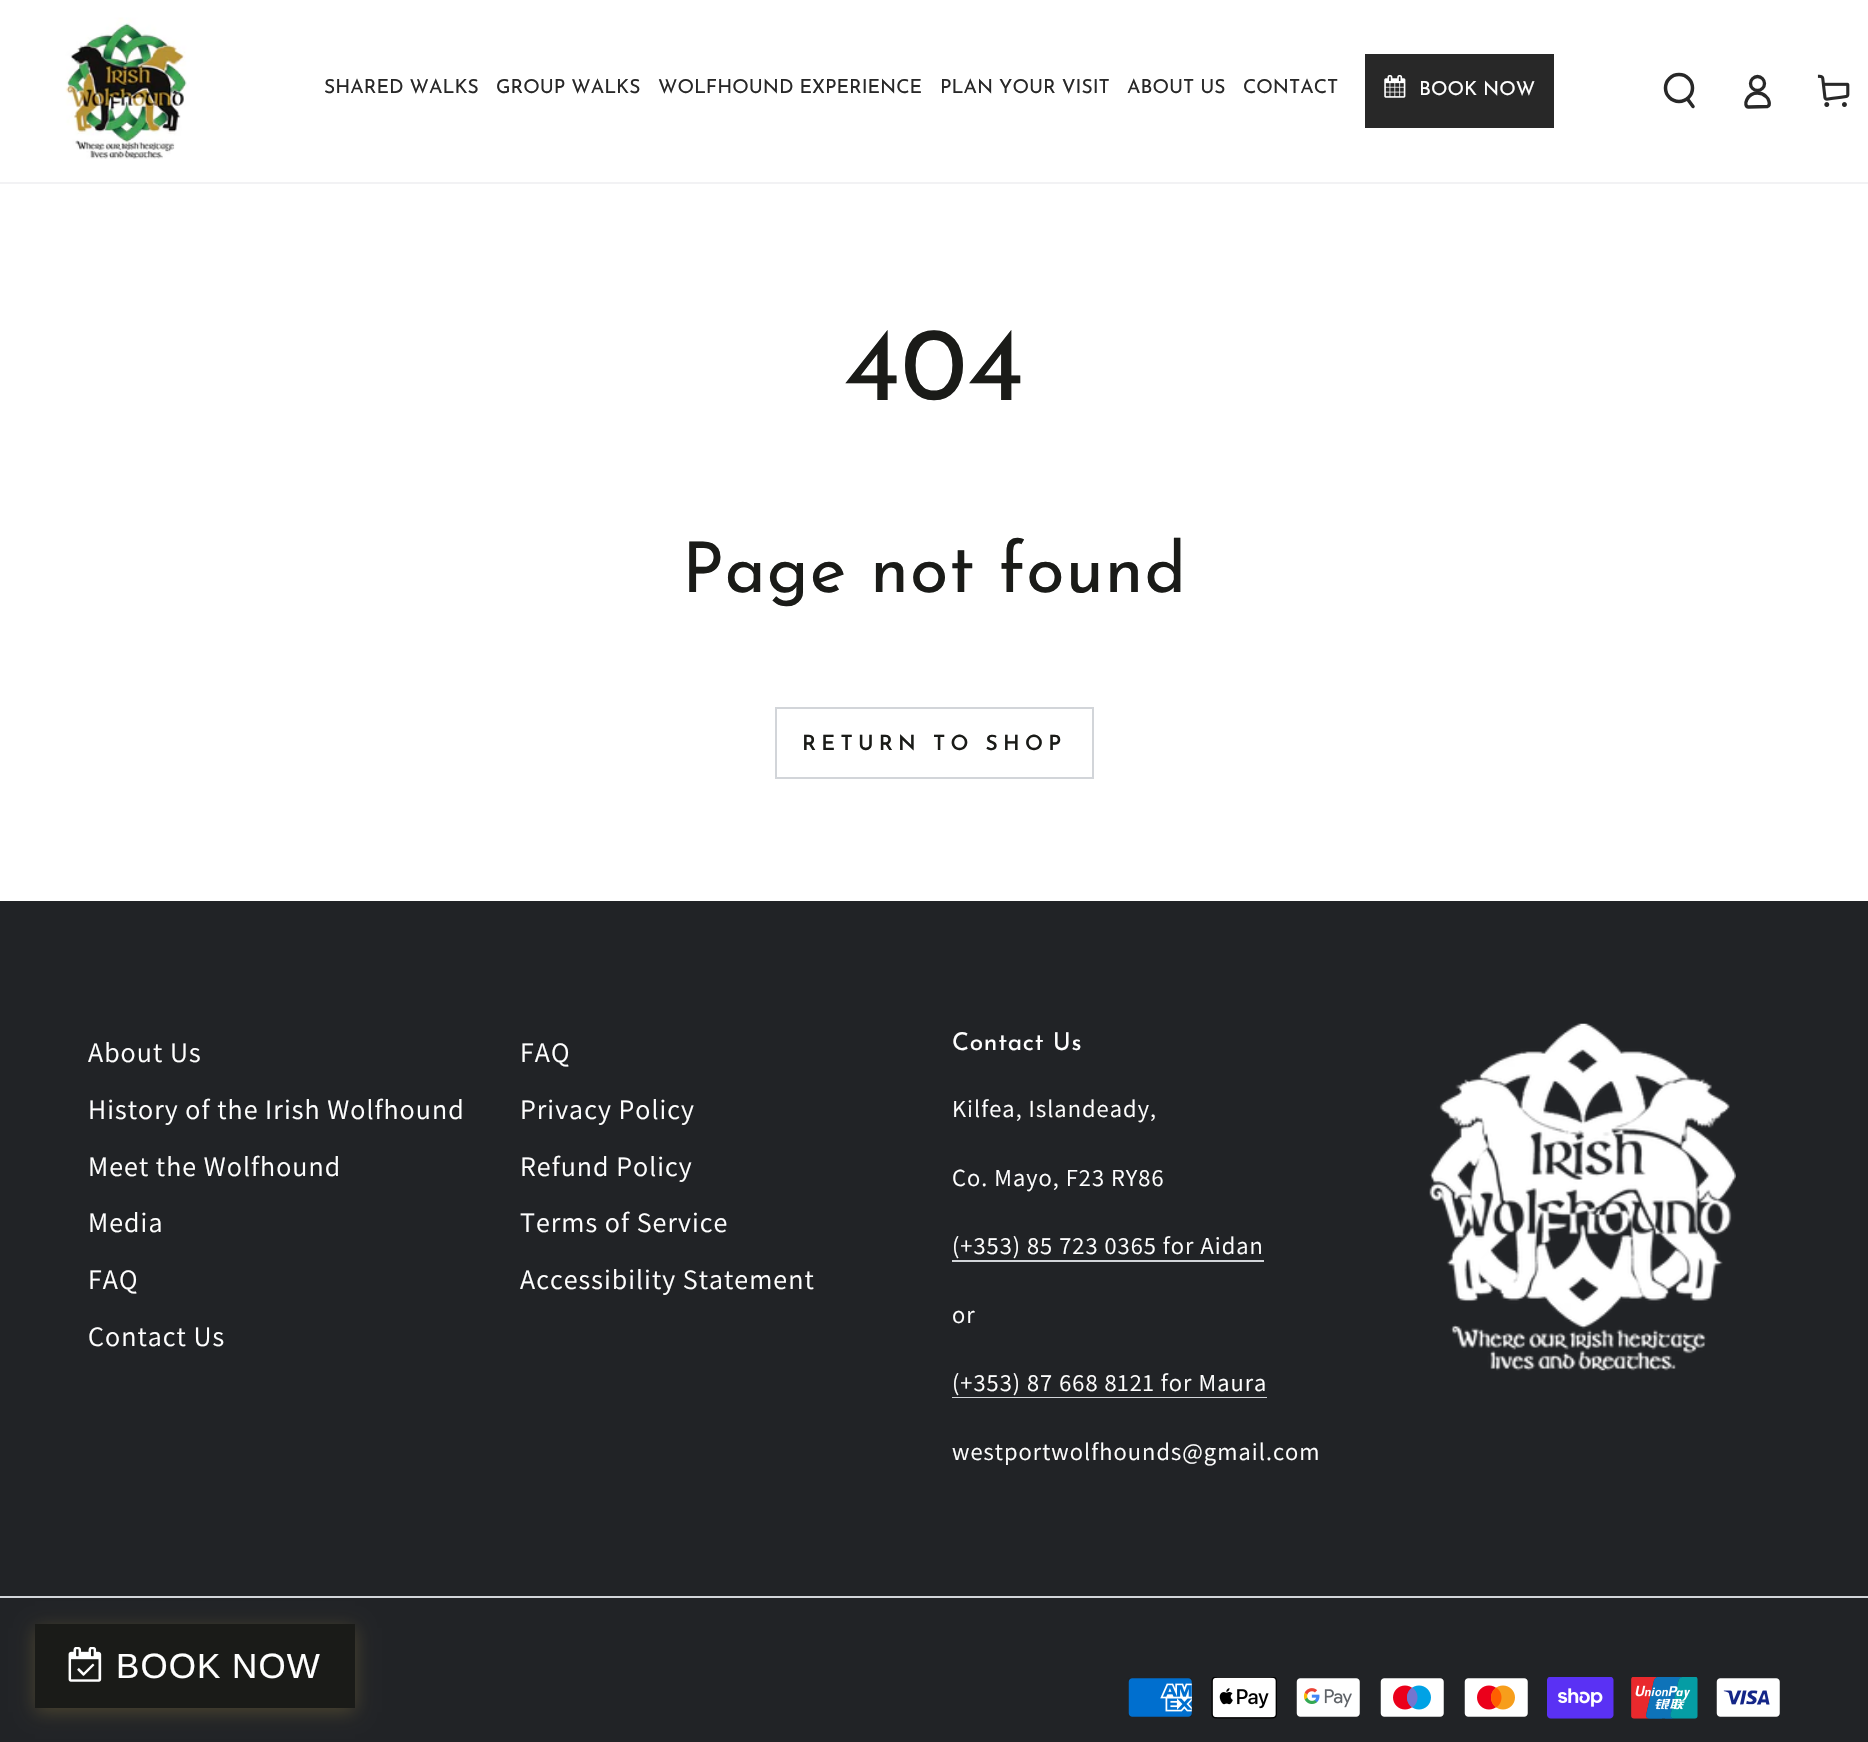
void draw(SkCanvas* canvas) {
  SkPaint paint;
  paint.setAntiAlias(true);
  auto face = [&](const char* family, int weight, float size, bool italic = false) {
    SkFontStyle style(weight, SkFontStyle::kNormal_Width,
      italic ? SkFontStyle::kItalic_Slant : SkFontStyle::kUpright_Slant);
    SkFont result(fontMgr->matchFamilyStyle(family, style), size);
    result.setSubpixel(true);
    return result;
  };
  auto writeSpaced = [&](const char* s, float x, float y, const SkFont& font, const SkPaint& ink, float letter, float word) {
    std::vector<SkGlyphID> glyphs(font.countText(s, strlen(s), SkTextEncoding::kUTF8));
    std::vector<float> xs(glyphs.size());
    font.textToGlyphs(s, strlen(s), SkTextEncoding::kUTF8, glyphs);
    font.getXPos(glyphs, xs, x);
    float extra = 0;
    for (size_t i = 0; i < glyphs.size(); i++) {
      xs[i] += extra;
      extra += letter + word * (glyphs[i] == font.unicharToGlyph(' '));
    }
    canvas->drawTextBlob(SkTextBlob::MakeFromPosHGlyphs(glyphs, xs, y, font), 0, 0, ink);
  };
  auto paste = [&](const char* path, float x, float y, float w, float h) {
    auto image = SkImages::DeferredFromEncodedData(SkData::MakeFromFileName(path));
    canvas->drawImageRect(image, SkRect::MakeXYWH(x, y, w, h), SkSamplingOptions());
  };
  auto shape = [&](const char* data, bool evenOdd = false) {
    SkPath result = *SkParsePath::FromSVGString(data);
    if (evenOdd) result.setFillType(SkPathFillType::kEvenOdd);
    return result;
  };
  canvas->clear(0xffffffff);
  paint.setColor(0xfff2f2f4);
  canvas->drawRect(SkRect::MakeXYWH(0, 182, 1868, 2), paint);
  paste("img/1.png", 65, 17, 125, 142);
  paint.setColor(0xff282828);
  canvas->drawRect(SkRect::MakeXYWH(1365, 54, 189, 74), paint);
  paste("img/2.png", 1384, 75, 22, 23);
  paint.setStroke(true);
  paint.setStrokeWidth(3.5f);
  canvas->drawCircle(1679, 88, 13.5f, paint);
  paint.setStrokeCap(SkPaint::kRound_Cap);
  canvas->drawPath(shape("M1687.5 99L1693 106.5"), paint);
  paint.setStrokeWidth(3.3f);
  paint.setStrokeCap(SkPaint::kButt_Cap);
  canvas->drawPath(shape("M1757.5 93C1747 93 1742.5 106.5 1748.5 107L1767.5 106.5C1771.5 105 1768 98 1766 96.5C1763.5 94 1760.5 93 1757.5 93Z"), paint);
  canvas->drawCircle(1757.5f, 83.5f, 7, paint);
  paste("img/3.png", 1817, 74, 33, 33);
  paint.setStrokeWidth(2);
  paint.setColor(0xffd2d5d9);
  canvas->drawRect(SkRect::MakeXYWH(776, 708, 317, 70), paint);
  paint.setStroke(false);
  {
    const struct { float x, y, w, h; SkColor color; } items[] = {
      {0, 901, 1868, 841, 0xff212326},
      {952, 1260, 312, 2, 0xffd2d5d9},
      {952, 1397, 315, 1, 0xffd2d5d9},
    };
    for (auto [x, y, w, h, color] : items) {
      paint.setColor(color);
      canvas->drawRect(SkRect::MakeXYWH(x, y, w, h), paint);
    }
  }
  paste("img/4.png", 1429, 1023, 307, 348);
  canvas->drawRect(SkRect::MakeXYWH(0, 1596, 1868, 2), paint);
  paste("img/5.png", 1128, 1678, 64, 39);
  paste("img/6.png", 1211, 1677, 66, 42);
  paste("img/7.png", 1296, 1678, 64, 39);
  paste("img/8.png", 1380, 1678, 64, 39);
  paste("img/9.png", 1464, 1678, 64, 39);
  paste("img/10.png", 1547, 1677, 67, 42);
  paste("img/11.png", 1631, 1677, 67, 42);
  paste("img/12.png", 1716, 1678, 64, 39);
  paint.setColor(0x4dac9145);
  paint.setMaskFilter(SkMaskFilter::MakeBlur(kNormal_SkBlurStyle, 9));
  canvas->drawRect(SkRect::MakeXYWH(35, 1628, 320, 84), paint);
  paint.setMaskFilter(nullptr);
  paint.setColor(0xff1a1b18);
  canvas->drawRect(SkRect::MakeXYWH(35, 1624, 320, 84), paint);
  paste("img/13.png", 68, 1647, 34, 35);
  auto f0 = face("Josefin Sans", 400, 19.25f);
  paint.setColor(0xff282828);
  {
    const struct { const char* s; float x, y; } items[] = {
      {"SHARED WALKS", 324, 93},
      {"GROUP WALKS", 496, 93},
      {"WOLFHOUND EXPERIENCE", 658, 93},
      {"PLAN YOUR VISIT", 940, 93},
      {"ABOUT US", 1127, 93},
      {"CONTACT", 1243, 93},
    };
    for (auto [s, x, y] : items) {
      canvas->drawString(s, x, y, f0, paint);
    }
  }
  paint.setColor(0xffffffff);
  canvas->drawString("BOOK NOW", 1419, 95, f0, paint);
  auto f1 = face("Josefin Sans", 400, 105);
  paint.setColor(0xff1a1b18);
  writeSpaced("404", 844, 400, f1, paint, 1.05f, 0);
  auto f2 = face("Josefin Sans", 400, 70);
  writeSpaced("Page not found", 682, 592, f2, paint, 1.05f, 0);
  auto f3 = face("Josefin Sans", 600, 21);
  writeSpaced("RETURN TO SHOP", 802, 750, f3, paint, 5.25f, 0);
  auto f4 = face("Assistant", 400, 28);
  paint.setColor(0xffffffff);
  {
    const struct { const char* s; float x, y; } items[] = {
      {"About Us", 88, 1062},
      {"History of the Irish Wolfhound", 88, 1119},
      {"Meet the Wolfhound", 88, 1176},
      {"Media", 88, 1232},
      {"FAQ", 88, 1289},
      {"Contact Us", 88, 1346},
      {"FAQ", 520, 1062},
      {"Privacy Policy", 520, 1119},
      {"Refund Policy", 520, 1176},
      {"Terms of Service", 520, 1232},
      {"Accessibility Statement", 520, 1289},
    };
    for (auto [s, x, y] : items) {
      writeSpaced(s, x, y, f4, paint, 1.05f, 0);
    }
  }
  auto f5 = face("Josefin Sans", 400, 24.5f);
  writeSpaced("Contact Us", 952, 1050, f5, paint, 0.75f, 0);
  auto f6 = face("Assistant", 400, 24.5f);
  {
    const struct { const char* s; float x, y; } items[] = {
      {"Kilfea, Islandeady,", 952, 1117},
      {"Co. Mayo, F23 RY86", 952, 1186},
      {"(+353) 85 723 0365 for Aidan", 952, 1254},
      {"or", 952, 1323},
      {"(+353) 87 668 8121 for Maura", 952, 1391},
      {"westportwolfhounds@gmail.com", 952, 1460},
    };
    for (auto [s, x, y] : items) {
      writeSpaced(s, x, y, f6, paint, 1.05f, 0);
    }
  }
  auto f7 = face("Liberation Sans", 400, 35);
  writeSpaced("BOOK NOW", 116, 1678, f7, paint, 1.05f, 0);
}
